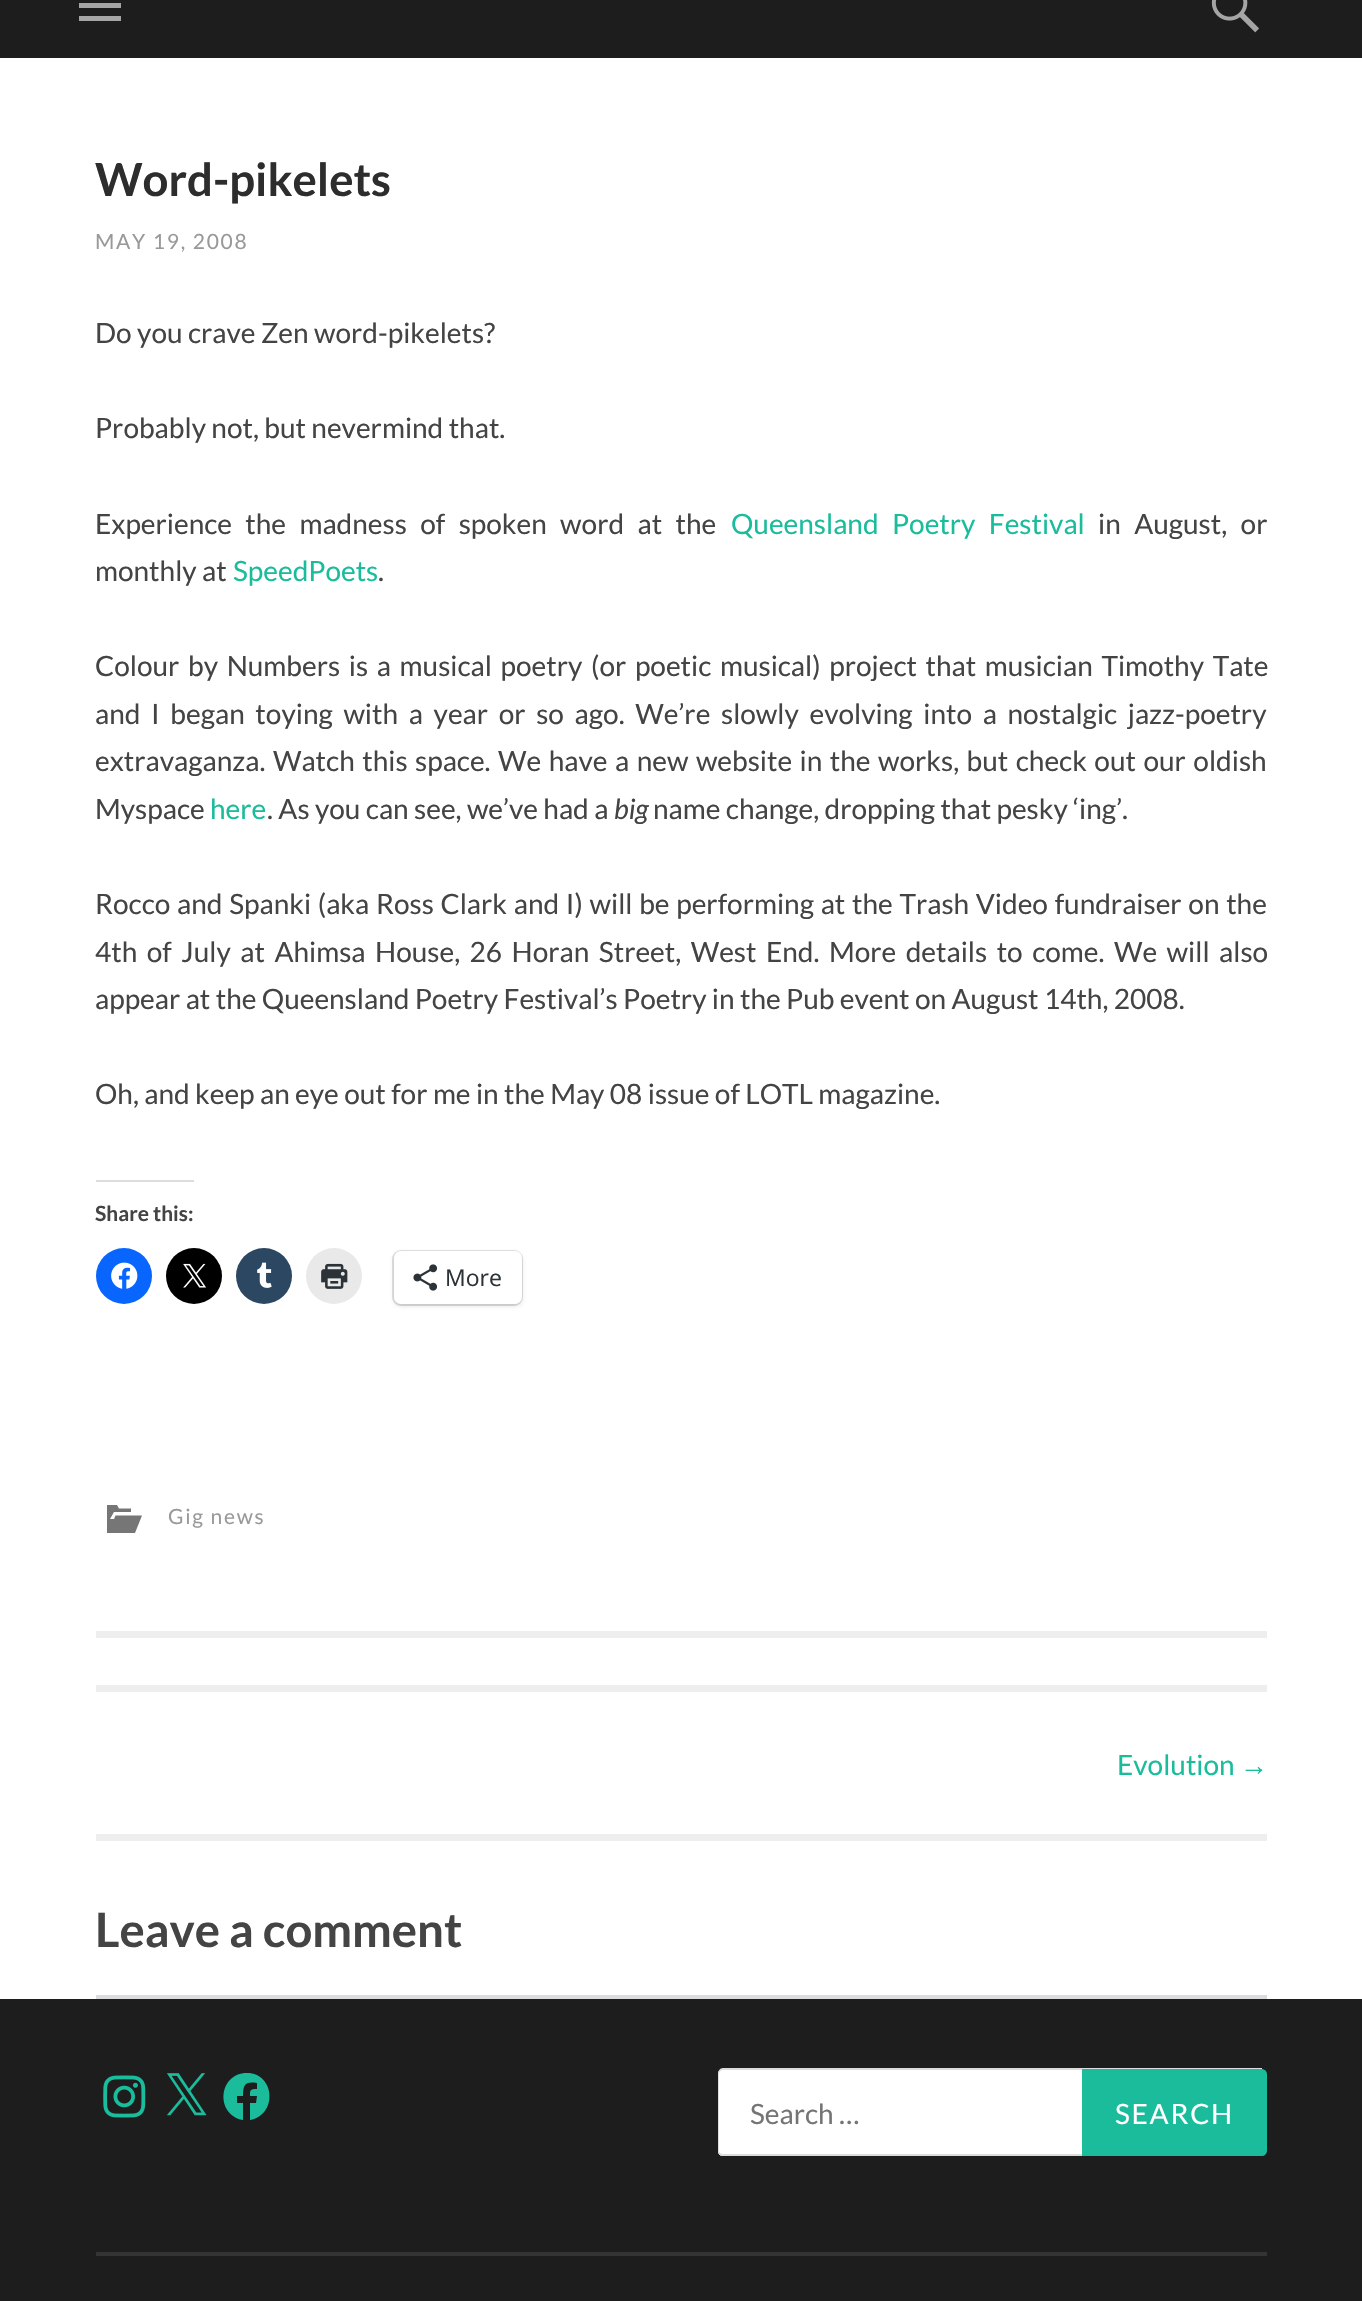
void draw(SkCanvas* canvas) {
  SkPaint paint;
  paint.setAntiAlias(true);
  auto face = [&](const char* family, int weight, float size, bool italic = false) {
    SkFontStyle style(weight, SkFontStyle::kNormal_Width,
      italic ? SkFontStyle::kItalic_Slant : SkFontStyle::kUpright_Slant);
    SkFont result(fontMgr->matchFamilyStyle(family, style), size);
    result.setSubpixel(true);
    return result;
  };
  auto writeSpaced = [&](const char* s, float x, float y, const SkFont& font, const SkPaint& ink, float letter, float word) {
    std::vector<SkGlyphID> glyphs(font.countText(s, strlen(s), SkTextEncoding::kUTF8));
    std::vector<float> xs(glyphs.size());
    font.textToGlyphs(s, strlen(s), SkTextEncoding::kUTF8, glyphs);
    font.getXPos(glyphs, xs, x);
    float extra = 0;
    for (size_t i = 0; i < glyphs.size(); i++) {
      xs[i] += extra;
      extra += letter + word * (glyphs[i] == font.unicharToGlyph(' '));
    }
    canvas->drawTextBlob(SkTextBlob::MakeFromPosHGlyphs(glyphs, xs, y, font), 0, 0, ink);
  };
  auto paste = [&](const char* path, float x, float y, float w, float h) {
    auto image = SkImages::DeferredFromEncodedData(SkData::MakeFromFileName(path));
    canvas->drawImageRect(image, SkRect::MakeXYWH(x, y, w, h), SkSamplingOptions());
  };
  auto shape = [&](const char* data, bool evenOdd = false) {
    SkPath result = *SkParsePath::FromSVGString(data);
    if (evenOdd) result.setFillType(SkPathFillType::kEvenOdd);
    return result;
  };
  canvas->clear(0xffffffff);
  paint.setColor(0xff1d1d1d);
  canvas->drawRect(SkRect::MakeXYWH(0, 0, 1362, 58), paint);
  paint.setColor(0xffa5a5a5);
  canvas->drawPath(shape("M79 21V16H121V21ZM79-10H121V-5H79ZM79 8V3H121V8Z"), paint);
  paste("img/1.png", 1211, 0, 48, 33);
  paint.setColor(0xffeeeeee);
  canvas->drawRect(SkRect::MakeXYWH(96, 1631, 1171, 7), paint);
  paint.setColor(0xffdcdcde);
  canvas->drawRect(SkRect::MakeXYWH(96, 1180, 98, 2), paint);
  paint.setColor(0xff0866ff);
  canvas->drawCircle(124, 1276, 28, paint);
  paste("img/2.png", 111, 1262, 27, 27);
  paint.setColor(0xff000000);
  canvas->drawCircle(194, 1276, 28, paint);
  paste("img/3.png", 183, 1263, 23, 25);
  paint.setColor(0xff2c4762);
  canvas->drawCircle(264, 1276, 28, paint);
  paste("img/4.png", 257, 1262, 15, 26);
  paint.setColor(0xffe9e9e9);
  canvas->drawCircle(334, 1276, 28, paint);
  paste("img/5.png", 321, 1263, 27, 26);
  paint.setStroke(true);
  paint.setStrokeWidth(2);
  paint.setColor(0xffe0e0e0);
  canvas->drawRoundRect(SkRect::MakeXYWH(393, 1251, 129, 54), 8, 8, paint);
  paint.setStroke(false);
  paint.setColor(0x1f000000);
  paint.setMaskFilter(SkMaskFilter::MakeBlur(kNormal_SkBlurStyle, 2));
  canvas->drawRoundRect(SkRect::MakeXYWH(394, 1253, 128, 53), 7, 7, paint);
  paint.setMaskFilter(nullptr);
  paint.setColor(0xffffffff);
  canvas->drawRoundRect(SkRect::MakeXYWH(394, 1251, 128, 53), 7, 7, paint);
  paste("img/6.png", 413, 1264, 25, 27);
  paint.setColor(0xff767676);
  canvas->drawPath(shape("M115.5 1515.5H142L135 1533H107V1505H117L119 1508.5H131V1512H114L110 1519H114Z"), paint);
  {
    const struct { float x, y, w, h; SkColor color; } items[] = {
      {96, 1685, 1171, 7, 0xffeeeeee},
      {96, 1834, 1171, 7, 0xffeeeeee},
      {96, 1995, 1171, 4, 0xffdcdcde},
      {0, 1999, 1362, 302, 0xff1d1d1d},
    };
    for (auto [x, y, w, h, color] : items) {
      paint.setColor(color);
      canvas->drawRect(SkRect::MakeXYWH(x, y, w, h), paint);
    }
  }
  paste("img/7.png", 103, 2075, 43, 43);
  paste("img/8.png", 167, 2073, 40, 43);
  paint.setColor(0xff1abc9c);
  canvas->drawPath(shape("M247 2073C218 2073 215 2115 243 2120V2103H237V2096H243C243 2085 245 2081 257 2083V2089C250 2089 250 2090 250 2096H257L256 2103H250V2120C278 2115 275 2073 247 2073Z"), paint);
  paint.setColor(0xffffffff);
  canvas->drawPath(shape("M723 2069H1262V2156H723C720 2156 718 2154 718 2151V2074C718 2071 720 2069 723 2069Z"), paint);
  paint.setColor(0xffdddddd);
  canvas->drawPath(shape("M723 2068H1262V2156H723C720 2156 718 2154 718 2151V2074C718 2071 720 2068 723 2068ZM723 2070H1262V2154H723C721 2154 719 2153 719 2151V2074C719 2072 721 2070 723 2070Z", true), paint);
  paint.setColor(0xff1abc9c);
  canvas->drawPath(shape("M1083 2070H1262C1264 2070 1266 2072 1266 2074V2151C1266 2153 1264 2155 1262 2155H1083Z"), paint);
  paint.setStroke(true);
  canvas->drawPath(shape("M1083 2070H1262C1264 2070 1266 2072 1266 2074V2151C1266 2153 1264 2155 1262 2155H1083Z"), paint);
  paint.setStroke(false);
  paint.setColor(0xff343434);
  canvas->drawRect(SkRect::MakeXYWH(96, 2252, 1171, 4), paint);
  auto f0 = face("Lato", 700, 45.5f);
  paint.setColor(0xff2d2d2d);
  canvas->drawString("Word-pikelets", 95, 196, f0, paint);
  auto f1 = face("Lato", 400, 21);
  paint.setColor(0xff999999);
  writeSpaced("MAY 19, 2008", 95, 249, f1, paint, 1.75f, 0);
  auto f2 = face("Lato", 400, 28);
  paint.setColor(0xff444444);
  canvas->drawString("Do you crave Zen word-pikelets?", 95, 343, f2, paint);
  canvas->drawString("Probably not, but nevermind that.", 95, 438, f2, paint);
  writeSpaced("Experience the madness of spoken word at the", 95, 534, f2, paint, 0, 8);
  paint.setColor(0xff1abc9c);
  writeSpaced("Queensland Poetry Festival", 731, 534, f2, paint, 0, 8);
  paint.setColor(0xff444444);
  writeSpaced("in August, or", 1098, 534, f2, paint, 0, 8);
  canvas->drawString("monthly at", 95, 581, f2, paint);
  paint.setColor(0xff1abc9c);
  canvas->drawString("SpeedPoets", 233, 581, f2, paint);
  paint.setColor(0xff444444);
  canvas->drawString(".", 378, 581, f2, paint);
  writeSpaced("Colour by Numbers is a musical poetry (or poetic musical) project that musician Timothy Tate", 95, 676, f2, paint, 0, 3.25f);
  writeSpaced("and I began toying with a year or so ago. We’re slowly evolving into a nostalgic jazz-poetry", 95, 724, f2, paint, 0, 5.25f);
  writeSpaced("extravaganza. Watch this space. We have a new website in the works, but check out our oldish", 95, 771, f2, paint, 0, 2.1f);
  canvas->drawString("Myspace", 95, 819, f2, paint);
  paint.setColor(0xff1abc9c);
  canvas->drawString("here", 210, 819, f2, paint);
  paint.setColor(0xff444444);
  canvas->drawString(". As you can see, we’ve had a", 267, 819, f2, paint);
  auto f3 = face("Lato", 400, 28, true);
  canvas->drawString("big", 614, 819, f3, paint);
  canvas->drawString("name change, dropping that pesky ‘ing’.", 653, 819, f2, paint);
  writeSpaced("Rocco and Spanki (aka Ross Clark and I) will be performing at the Trash Video fundraiser on the", 95, 914, f2, paint, 0, 1.3f);
  writeSpaced("4th of July at Ahimsa House, 26 Horan Street, West End. More details to come. We will also", 95, 962, f2, paint, 0, 4.1f);
  canvas->drawString("appear at the Queensland Poetry Festival’s Poetry in the Pub event on August 14th, 2008.", 95, 1009, f2, paint);
  canvas->drawString("Oh, and keep an eye out for me in the May 08 issue of LOTL magazine.", 95, 1104, f2, paint);
  auto f4 = face("Lato", 700, 21);
  canvas->drawString("Share this:", 95, 1221, f4, paint);
  auto f5 = face("Open Sans", 400, 23);
  paint.setColor(0xff2c3338);
  canvas->drawString("More", 445, 1286, f5, paint);
  paint.setColor(0xff999999);
  writeSpaced("Gig news", 168, 1524, f1, paint, 1.75f, 0);
  paint.setColor(0xff1abc9c);
  canvas->drawString("Evolution", 1117, 1775, f2, paint);
  auto f6 = face("Liberation Sans", 400, 28);
  canvas->drawString("→", 1240, 1775, f6, paint);
  auto f7 = face("Lato", 700, 47.25f);
  paint.setColor(0xff444444);
  canvas->drawString("Leave a comment", 95, 1947, f7, paint);
  paint.setColor(0xff757575);
  canvas->drawString("Search …", 750, 2124, f2, paint);
  paint.setColor(0xffffffff);
  writeSpaced("SEARCH", 1115, 2124, f2, paint, 1.75f, 0);
}
